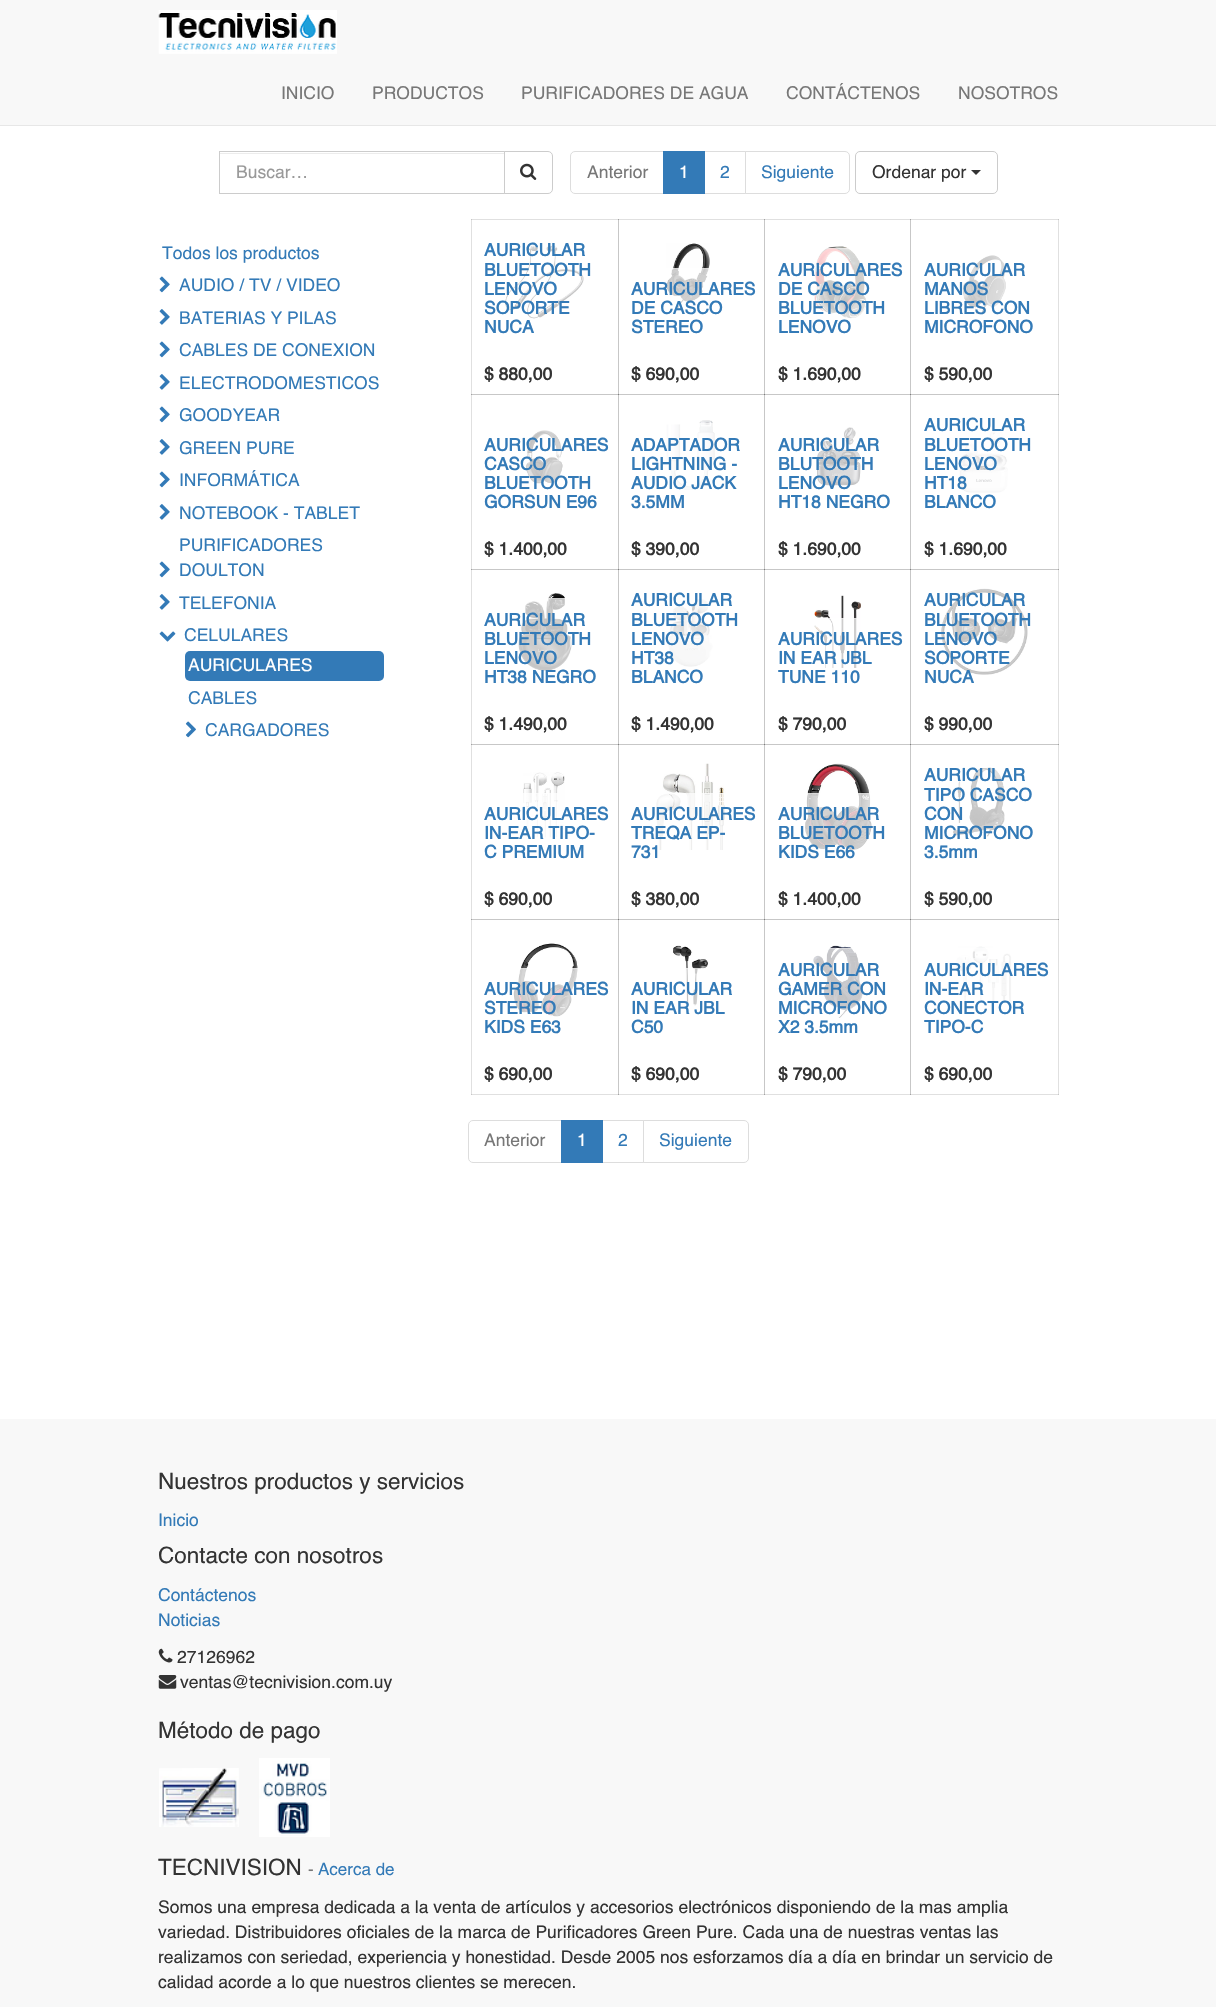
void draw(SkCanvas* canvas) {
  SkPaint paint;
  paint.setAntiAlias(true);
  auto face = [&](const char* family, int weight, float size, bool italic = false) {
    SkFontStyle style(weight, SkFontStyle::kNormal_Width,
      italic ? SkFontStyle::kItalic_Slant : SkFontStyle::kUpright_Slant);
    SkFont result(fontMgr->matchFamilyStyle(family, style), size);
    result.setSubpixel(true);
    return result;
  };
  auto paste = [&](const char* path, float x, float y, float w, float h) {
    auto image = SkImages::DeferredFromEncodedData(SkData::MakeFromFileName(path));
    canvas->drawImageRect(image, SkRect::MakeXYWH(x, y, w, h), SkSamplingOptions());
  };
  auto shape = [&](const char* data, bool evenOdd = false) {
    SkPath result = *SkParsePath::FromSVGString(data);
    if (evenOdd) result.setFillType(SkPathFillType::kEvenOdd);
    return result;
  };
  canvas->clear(0xffffffff);
  {
    const struct { float x, y, w, h; SkColor color; } items[] = {
      {471, 219, 1, 876, 0xffe0e0e0},
      {471, 219, 148, 1, 0xffe0e0e0},
      {471, 219, 1, 1, 0xffc7c7c7},
      {618, 219, 1, 176, 0xffc7c7c7},
      {618, 219, 147, 1, 0xffe0e0e0},
      {618, 219, 1, 1, 0xffa3a3a3},
      {764, 219, 1, 176, 0xffc7c7c7},
      {764, 219, 147, 1, 0xffe0e0e0},
      {764, 219, 1, 1, 0xffa3a3a3},
      {910, 219, 1, 176, 0xffc7c7c7},
      {1058, 219, 1, 701, 0xffe0e0e0},
      {471, 394, 148, 1, 0xffc7c7c7},
      {471, 394, 1, 1, 0xffa3a3a3},
      {618, 394, 1, 176, 0xffc7c7c7},
      {618, 394, 147, 1, 0xffc7c7c7},
      {618, 394, 1, 1, 0xff7e7e7e},
      {764, 394, 1, 176, 0xffc7c7c7},
      {764, 394, 147, 1, 0xffc7c7c7},
      {764, 394, 1, 1, 0xff7e7e7e},
      {910, 394, 1, 176, 0xffc7c7c7},
      {471, 569, 148, 1, 0xffc7c7c7},
      {471, 569, 1, 1, 0xffa3a3a3},
      {618, 569, 1, 176, 0xffc7c7c7},
      {618, 569, 147, 1, 0xffc7c7c7},
      {618, 569, 1, 1, 0xff7e7e7e},
      {764, 569, 1, 176, 0xffc7c7c7},
      {764, 569, 147, 1, 0xffc7c7c7},
      {764, 569, 1, 1, 0xff7e7e7e},
      {910, 569, 1, 176, 0xffc7c7c7},
      {471, 744, 148, 1, 0xffc7c7c7},
      {471, 744, 1, 1, 0xffa3a3a3},
      {618, 744, 1, 176, 0xffc7c7c7},
      {618, 744, 147, 1, 0xffc7c7c7},
      {618, 744, 1, 1, 0xff7e7e7e},
      {764, 744, 1, 176, 0xffc7c7c7},
      {764, 744, 147, 1, 0xffc7c7c7},
      {764, 744, 1, 1, 0xff7e7e7e},
      {910, 744, 1, 176, 0xffc7c7c7},
      {471, 1094, 148, 1, 0xffe0e0e0},
      {471, 1094, 1, 1, 0xffc7c7c7},
      {471, 919, 148, 1, 0xffc7c7c7},
      {471, 919, 1, 1, 0xffa3a3a3},
      {618, 919, 1, 176, 0xffc7c7c7},
      {618, 1094, 147, 1, 0xffe0e0e0},
      {618, 1094, 1, 1, 0xffa3a3a3},
      {618, 919, 147, 1, 0xffc7c7c7},
      {618, 919, 1, 1, 0xff7e7e7e},
      {764, 919, 1, 176, 0xffc7c7c7},
      {764, 1094, 147, 1, 0xffe0e0e0},
      {764, 1094, 1, 1, 0xffa3a3a3},
      {764, 919, 147, 1, 0xffc7c7c7},
      {764, 919, 1, 1, 0xff7e7e7e},
      {910, 919, 1, 176, 0xffc7c7c7},
      {910, 1094, 149, 1, 0xffe0e0e0},
      {910, 1094, 1, 1, 0xffa3a3a3},
      {1058, 919, 1, 176, 0xffe0e0e0},
      {1058, 1094, 1, 1, 0xffc7c7c7},
      {0, 0, 1216, 125, 0xfff8f8f8},
      {0, 125, 1216, 1, 0xffe7e7e7},
    };
    for (auto [x, y, w, h, color] : items) {
      paint.setColor(color);
      canvas->drawRect(SkRect::MakeXYWH(x, y, w, h), paint);
    }
  }
  paste("img/1.png", 158, 10, 179, 44);
  paint.setColor(0xffececec);
  canvas->drawRect(SkRect::MakeXYWH(220, 153, 284, 1), paint);
  paint.setStroke(true);
  paint.setStrokeWidth(1);
  paint.setColor(0xffcccccc);
  canvas->drawRect(SkRect::MakeXYWH(219.5f, 151.5f, 285, 42), paint);
  paint.setStroke(false);
  paint.setColor(0xffffffff);
  canvas->drawPath(shape("M504.5 151.5H548C550.5 151.5 552.5 153.5 552.5 156V189C552.5 191.5 550.5 193.5 548 193.5H504.5Z"), paint);
  paint.setStroke(true);
  paint.setColor(0xffcccccc);
  canvas->drawPath(shape("M504.5 151.5H548C550.5 151.5 552.5 153.5 552.5 156V189C552.5 191.5 550.5 193.5 548 193.5H504.5Z"), paint);
  paste("img/2.png", 520, 163, 17, 17);
  paint.setColor(0xffdddddd);
  canvas->drawPath(shape("M575 151.5H663.5V193.5H575C572.5 193.5 570.5 191.5 570.5 189V156C570.5 153.5 572.5 151.5 575 151.5Z"), paint);
  canvas->drawRect(SkRect::MakeXYWH(704.5f, 151.5f, 41, 42), paint);
  paint.setStroke(false);
  paint.setColor(0xff337ab7);
  canvas->drawRect(SkRect::MakeXYWH(663, 151, 42, 43), paint);
  paint.setColor(0xffffffff);
  canvas->drawPath(shape("M745.5 151.5H845C847.5 151.5 849.5 153.5 849.5 156V189C849.5 191.5 847.5 193.5 845 193.5H745.5Z"), paint);
  paint.setStroke(true);
  paint.setColor(0xffdddddd);
  canvas->drawPath(shape("M745.5 151.5H845C847.5 151.5 849.5 153.5 849.5 156V189C849.5 191.5 847.5 193.5 845 193.5H745.5Z"), paint);
  paint.setColor(0xffcccccc);
  canvas->drawRoundRect(SkRect::MakeXYWH(855.5f, 151.5f, 142, 42), 4.5f, 4.5f, paint);
  paint.setStroke(false);
  paint.setColor(0xff333333);
  canvas->drawPath(shape("M971 170H981L976 175Z"), paint);
  paste("img/3.png", 159, 276, 11, 17);
  paste("img/4.png", 159, 309, 11, 16);
  paste("img/3.png", 159, 341, 11, 17);
  paste("img/4.png", 159, 374, 11, 16);
  paste("img/3.png", 159, 406, 11, 17);
  paste("img/4.png", 159, 439, 11, 16);
  paste("img/3.png", 159, 471, 11, 17);
  paste("img/4.png", 159, 504, 11, 16);
  paste("img/3.png", 159, 561, 11, 17);
  paste("img/4.png", 159, 594, 11, 16);
  paste("img/5.png", 159, 631, 17, 11);
  paint.setColor(0xff337ab7);
  canvas->drawRoundRect(SkRect::MakeXYWH(185, 651, 199, 30), 5, 5, paint);
  paste("img/6.png", 185, 721, 11, 17);
  paste("img/7.png", 505, 245, 79, 74);
  paste("img/8.png", 666, 243, 44, 67);
  paint.setColor(0xbfffffff);
  canvas->drawRect(SkRect::MakeXYWH(666, 268, 43, 42), paint);
  paint.setColor(0x33ffffff);
  canvas->drawRect(SkRect::MakeXYWH(673, 268, 36, 1), paint);
  paste("img/9.png", 814, 246, 53, 73);
  {
    const struct { float x, y, w, h; SkColor color; } items[] = {
      {826, 248, 22, 1, 0x33ffffff},
      {910, 219, 149, 1, 0xffe0e0e0},
      {910, 219, 1, 1, 0xffa3a3a3},
      {1058, 219, 1, 1, 0xffc7c7c7},
    };
    for (auto [x, y, w, h, color] : items) {
      paint.setColor(color);
      canvas->drawRect(SkRect::MakeXYWH(x, y, w, h), paint);
    }
  }
  paste("img/10.png", 963, 255, 43, 59);
  paste("img/11.png", 525, 430, 38, 54);
  paste("img/12.png", 666, 420, 49, 70);
  paint.setColor(0x33ffffff);
  canvas->drawRect(SkRect::MakeXYWH(706, 423, 3, 1), paint);
  paste("img/13.png", 817, 427, 44, 59);
  {
    const struct { float x, y, w, h; SkColor color; } items[] = {
      {910, 394, 149, 1, 0xffc7c7c7},
      {910, 394, 1, 1, 0xff7e7e7e},
      {1058, 394, 1, 1, 0xffa3a3a3},
    };
    for (auto [x, y, w, h, color] : items) {
      paint.setColor(color);
      canvas->drawRect(SkRect::MakeXYWH(x, y, w, h), paint);
    }
  }
  paste("img/14.png", 959, 429, 49, 64);
  paste("img/15.png", 518, 593, 54, 78);
  paint.setColor(0x33ffffff);
  canvas->drawRect(SkRect::MakeXYWH(548, 598, 17, 1), paint);
  paste("img/16.png", 668, 599, 45, 68);
  paste("img/17.png", 814, 595, 47, 73);
  {
    const struct { float x, y, w, h; SkColor color; } items[] = {
      {814, 618, 43, 50, 0xbfffffff},
      {828, 618, 28, 1, 0x33ffffff},
      {910, 569, 149, 1, 0xffc7c7c7},
      {910, 569, 1, 1, 0xff7e7e7e},
      {1058, 569, 1, 1, 0xffa3a3a3},
    };
    for (auto [x, y, w, h, color] : items) {
      paint.setColor(color);
      canvas->drawRect(SkRect::MakeXYWH(x, y, w, h), paint);
    }
  }
  paste("img/18.png", 941, 588, 87, 87);
  paste("img/19.png", 523, 772, 42, 66);
  paint.setColor(0xbfffffff);
  canvas->drawRect(SkRect::MakeXYWH(523, 793, 35, 45), paint);
  paste("img/20.png", 656, 763, 70, 87);
  canvas->drawRect(SkRect::MakeXYWH(656, 793, 70, 57), paint);
  paint.setColor(0x33ffffff);
  canvas->drawRect(SkRect::MakeXYWH(704, 793, 19, 1), paint);
  paste("img/21.png", 805, 763, 67, 87);
  {
    const struct { float x, y, w, h; SkColor color; } items[] = {
      {805, 793, 67, 57, 0xbfffffff},
      {808, 793, 61, 1, 0x33ffffff},
      {910, 744, 149, 1, 0xffc7c7c7},
      {910, 744, 1, 1, 0xff7e7e7e},
      {1058, 744, 1, 1, 0xffa3a3a3},
    };
    for (auto [x, y, w, h, color] : items) {
      paint.setColor(color);
      canvas->drawRect(SkRect::MakeXYWH(x, y, w, h), paint);
    }
  }
  paste("img/22.png", 952, 767, 53, 70);
  paste("img/23.png", 513, 943, 65, 74);
  paint.setColor(0xbfffffff);
  canvas->drawRect(SkRect::MakeXYWH(513, 968, 65, 49), paint);
  paint.setColor(0x33ffffff);
  canvas->drawRect(SkRect::MakeXYWH(521, 968, 57, 1), paint);
  paste("img/24.png", 673, 945, 35, 61);
  paint.setColor(0xbfffffff);
  canvas->drawRect(SkRect::MakeXYWH(686, 968, 19, 38), paint);
  paint.setColor(0x33ffffff);
  canvas->drawRect(SkRect::MakeXYWH(686, 968, 15, 1), paint);
  paste("img/25.png", 813, 945, 50, 73);
  {
    const struct { float x, y, w, h; SkColor color; } items[] = {
      {829, 948, 23, 1, 0x33ffffff},
      {910, 919, 149, 1, 0xffc7c7c7},
      {910, 919, 1, 1, 0xff7e7e7e},
      {1058, 919, 1, 1, 0xffa3a3a3},
    };
    for (auto [x, y, w, h, color] : items) {
      paint.setColor(color);
      canvas->drawRect(SkRect::MakeXYWH(x, y, w, h), paint);
    }
  }
  paste("img/26.png", 956, 946, 56, 56);
  paint.setStroke(true);
  paint.setColor(0xffdddddd);
  canvas->drawPath(shape("M473 1120.5H562.5V1162.5H473C470.5 1162.5 468.5 1160.5 468.5 1158V1125C468.5 1122.5 470.5 1120.5 473 1120.5Z"), paint);
  canvas->drawRect(SkRect::MakeXYWH(601.5f, 1120.5f, 42, 42), paint);
  paint.setStroke(false);
  paint.setColor(0xff337ab7);
  canvas->drawRect(SkRect::MakeXYWH(561, 1120, 42, 43), paint);
  paint.setColor(0xffffffff);
  canvas->drawPath(shape("M643.5 1120.5H744C746.5 1120.5 748.5 1122.5 748.5 1125V1158C748.5 1160.5 746.5 1162.5 744 1162.5H643.5Z"), paint);
  paint.setStroke(true);
  paint.setColor(0xffdddddd);
  canvas->drawPath(shape("M643.5 1120.5H744C746.5 1120.5 748.5 1122.5 748.5 1125V1158C748.5 1160.5 746.5 1162.5 744 1162.5H643.5Z"), paint);
  paint.setStroke(false);
  paint.setColor(0xfff8f8f8);
  canvas->drawRect(SkRect::MakeXYWH(0, 1419, 1216, 588), paint);
  paste("img/27.png", 158, 1648, 15, 15);
  paste("img/28.png", 158, 1675, 19, 14);
  paste("img/29.png", 159, 1768, 80, 59);
  paste("img/30.png", 259, 1758, 71, 79);
  auto f0 = face("Helvetica", 400, 17.5f);
  paint.setColor(0xff777777);
  {
    const struct { const char* s; float x, y; } items[] = {
      {"INICIO", 281, 99},
      {"PRODUCTOS", 372, 99},
      {"PURIFICADORES DE AGUA", 521, 99},
      {"CONTÁCTENOS", 786, 99},
      {"NOSOTROS", 958, 99},
    };
    for (auto [s, x, y] : items) {
      canvas->drawString(s, x, y, f0, paint);
    }
  }
  paint.setColor(0xff999999);
  canvas->drawString("Buscar…", 236, 178, f0, paint);
  paint.setColor(0xff777777);
  canvas->drawString("Anterior", 587, 178, f0, paint);
  paint.setColor(0xffffffff);
  canvas->drawString("1", 679, 178, f0, paint);
  paint.setColor(0xff337ab7);
  canvas->drawString("2", 720, 178, f0, paint);
  canvas->drawString("Siguiente", 761, 178, f0, paint);
  paint.setColor(0xff333333);
  canvas->drawString("Ordenar por", 872, 178, f0, paint);
  paint.setColor(0xff337ab7);
  {
    const struct { const char* s; float x, y; } items[] = {
      {"Todos los productos", 162, 259},
      {"AUDIO / TV / VIDEO", 179, 291},
      {"BATERIAS Y PILAS", 179, 324},
      {"CABLES DE CONEXION", 179, 356},
      {"ELECTRODOMESTICOS", 179, 389},
      {"GOODYEAR", 179, 421},
      {"GREEN PURE", 179, 454},
      {"INFORMÁTICA", 179, 486},
      {"NOTEBOOK - TABLET", 179, 519},
      {"PURIFICADORES", 179, 551},
      {"DOULTON", 179, 576},
      {"TELEFONIA", 179, 609},
      {"CELULARES", 184, 641},
    };
    for (auto [s, x, y] : items) {
      canvas->drawString(s, x, y, f0, paint);
    }
  }
  paint.setColor(0xffffffff);
  canvas->drawString("AURICULARES", 188, 671, f0, paint);
  paint.setColor(0xff337ab7);
  canvas->drawString("CABLES", 188, 704, f0, paint);
  canvas->drawString("CARGADORES", 205, 736, f0, paint);
  auto f1 = face("Helvetica", 700, 17.5f);
  {
    const struct { const char* s; float x, y; } items[] = {
      {"AURICULAR", 484, 256},
      {"BLUETOOTH", 484, 276},
      {"LENOVO", 484, 295},
      {"SOPORTE", 484, 314},
      {"NUCA", 484, 333},
    };
    for (auto [s, x, y] : items) {
      canvas->drawString(s, x, y, f1, paint);
    }
  }
  paint.setColor(0xff333333);
  canvas->drawString("$ 880,00", 484, 380, f1, paint);
  paint.setColor(0xff337ab7);
  {
    const struct { const char* s; float x, y; } items[] = {
      {"AURICULARES", 631, 295},
      {"DE CASCO", 631, 314},
      {"STEREO", 631, 333},
    };
    for (auto [s, x, y] : items) {
      canvas->drawString(s, x, y, f1, paint);
    }
  }
  paint.setColor(0xff333333);
  canvas->drawString("$ 690,00", 631, 380, f1, paint);
  paint.setColor(0xff337ab7);
  {
    const struct { const char* s; float x, y; } items[] = {
      {"AURICULARES", 778, 276},
      {"DE CASCO", 778, 295},
      {"BLUETOOTH", 778, 314},
      {"LENOVO", 778, 333},
    };
    for (auto [s, x, y] : items) {
      canvas->drawString(s, x, y, f1, paint);
    }
  }
  paint.setColor(0xff333333);
  canvas->drawString("$ 1.690,00", 778, 380, f1, paint);
  paint.setColor(0xff337ab7);
  {
    const struct { const char* s; float x, y; } items[] = {
      {"AURICULAR", 924, 276},
      {"MANOS", 924, 295},
      {"LIBRES CON", 924, 314},
      {"MICROFONO", 924, 333},
    };
    for (auto [s, x, y] : items) {
      canvas->drawString(s, x, y, f1, paint);
    }
  }
  paint.setColor(0xff333333);
  canvas->drawString("$ 590,00", 924, 380, f1, paint);
  paint.setColor(0xff337ab7);
  {
    const struct { const char* s; float x, y; } items[] = {
      {"AURICULARES", 484, 451},
      {"CASCO", 484, 470},
      {"BLUETOOTH", 484, 489},
      {"GORSUN E96", 484, 508},
    };
    for (auto [s, x, y] : items) {
      canvas->drawString(s, x, y, f1, paint);
    }
  }
  paint.setColor(0xff333333);
  canvas->drawString("$ 1.400,00", 484, 555, f1, paint);
  paint.setColor(0xff337ab7);
  {
    const struct { const char* s; float x, y; } items[] = {
      {"ADAPTADOR", 631, 451},
      {"LIGHTNING -", 631, 470},
      {"AUDIO JACK", 631, 489},
      {"3.5MM", 631, 508},
    };
    for (auto [s, x, y] : items) {
      canvas->drawString(s, x, y, f1, paint);
    }
  }
  paint.setColor(0xff333333);
  canvas->drawString("$ 390,00", 631, 555, f1, paint);
  paint.setColor(0xff337ab7);
  {
    const struct { const char* s; float x, y; } items[] = {
      {"AURICULAR", 778, 451},
      {"BLUTOOTH", 778, 470},
      {"LENOVO", 778, 489},
      {"HT18 NEGRO", 778, 508},
    };
    for (auto [s, x, y] : items) {
      canvas->drawString(s, x, y, f1, paint);
    }
  }
  paint.setColor(0xff333333);
  canvas->drawString("$ 1.690,00", 778, 555, f1, paint);
  paint.setColor(0xff337ab7);
  {
    const struct { const char* s; float x, y; } items[] = {
      {"AURICULAR", 924, 431},
      {"BLUETOOTH", 924, 451},
      {"LENOVO", 924, 470},
      {"HT18", 924, 489},
      {"BLANCO", 924, 508},
    };
    for (auto [s, x, y] : items) {
      canvas->drawString(s, x, y, f1, paint);
    }
  }
  paint.setColor(0xff333333);
  canvas->drawString("$ 1.690,00", 924, 555, f1, paint);
  paint.setColor(0xff337ab7);
  {
    const struct { const char* s; float x, y; } items[] = {
      {"AURICULAR", 484, 626},
      {"BLUETOOTH", 484, 645},
      {"LENOVO", 484, 664},
      {"HT38 NEGRO", 484, 683},
    };
    for (auto [s, x, y] : items) {
      canvas->drawString(s, x, y, f1, paint);
    }
  }
  paint.setColor(0xff333333);
  canvas->drawString("$ 1.490,00", 484, 730, f1, paint);
  paint.setColor(0xff337ab7);
  {
    const struct { const char* s; float x, y; } items[] = {
      {"AURICULAR", 631, 606},
      {"BLUETOOTH", 631, 626},
      {"LENOVO", 631, 645},
      {"HT38", 631, 664},
      {"BLANCO", 631, 683},
    };
    for (auto [s, x, y] : items) {
      canvas->drawString(s, x, y, f1, paint);
    }
  }
  paint.setColor(0xff333333);
  canvas->drawString("$ 1.490,00", 631, 730, f1, paint);
  paint.setColor(0xff337ab7);
  {
    const struct { const char* s; float x, y; } items[] = {
      {"AURICULARES", 778, 645},
      {"IN EAR JBL", 778, 664},
      {"TUNE 110", 778, 683},
    };
    for (auto [s, x, y] : items) {
      canvas->drawString(s, x, y, f1, paint);
    }
  }
  paint.setColor(0xff333333);
  canvas->drawString("$ 790,00", 778, 730, f1, paint);
  paint.setColor(0xff337ab7);
  {
    const struct { const char* s; float x, y; } items[] = {
      {"AURICULAR", 924, 606},
      {"BLUETOOTH", 924, 626},
      {"LENOVO", 924, 645},
      {"SOPORTE", 924, 664},
      {"NUCA", 924, 683},
    };
    for (auto [s, x, y] : items) {
      canvas->drawString(s, x, y, f1, paint);
    }
  }
  paint.setColor(0xff333333);
  canvas->drawString("$ 990,00", 924, 730, f1, paint);
  paint.setColor(0xff337ab7);
  {
    const struct { const char* s; float x, y; } items[] = {
      {"AURICULARES", 484, 820},
      {"IN-EAR TIPO-", 484, 839},
      {"C PREMIUM", 484, 858},
    };
    for (auto [s, x, y] : items) {
      canvas->drawString(s, x, y, f1, paint);
    }
  }
  paint.setColor(0xff333333);
  canvas->drawString("$ 690,00", 484, 905, f1, paint);
  paint.setColor(0xff337ab7);
  {
    const struct { const char* s; float x, y; } items[] = {
      {"AURICULARES", 631, 820},
      {"TREQA EP-", 631, 839},
      {"731", 631, 858},
    };
    for (auto [s, x, y] : items) {
      canvas->drawString(s, x, y, f1, paint);
    }
  }
  paint.setColor(0xff333333);
  canvas->drawString("$ 380,00", 631, 905, f1, paint);
  paint.setColor(0xff337ab7);
  {
    const struct { const char* s; float x, y; } items[] = {
      {"AURICULAR", 778, 820},
      {"BLUETOOTH", 778, 839},
      {"KIDS E66", 778, 858},
    };
    for (auto [s, x, y] : items) {
      canvas->drawString(s, x, y, f1, paint);
    }
  }
  paint.setColor(0xff333333);
  canvas->drawString("$ 1.400,00", 778, 905, f1, paint);
  paint.setColor(0xff337ab7);
  {
    const struct { const char* s; float x, y; } items[] = {
      {"AURICULAR", 924, 781},
      {"TIPO CASCO", 924, 801},
      {"CON", 924, 820},
      {"MICROFONO", 924, 839},
      {"3.5mm", 924, 858},
    };
    for (auto [s, x, y] : items) {
      canvas->drawString(s, x, y, f1, paint);
    }
  }
  paint.setColor(0xff333333);
  canvas->drawString("$ 590,00", 924, 905, f1, paint);
  paint.setColor(0xff337ab7);
  {
    const struct { const char* s; float x, y; } items[] = {
      {"AURICULARES", 484, 995},
      {"STEREO", 484, 1014},
      {"KIDS E63", 484, 1033},
    };
    for (auto [s, x, y] : items) {
      canvas->drawString(s, x, y, f1, paint);
    }
  }
  paint.setColor(0xff333333);
  canvas->drawString("$ 690,00", 484, 1080, f1, paint);
  paint.setColor(0xff337ab7);
  {
    const struct { const char* s; float x, y; } items[] = {
      {"AURICULAR", 631, 995},
      {"IN EAR JBL", 631, 1014},
      {"C50", 631, 1033},
    };
    for (auto [s, x, y] : items) {
      canvas->drawString(s, x, y, f1, paint);
    }
  }
  paint.setColor(0xff333333);
  canvas->drawString("$ 690,00", 631, 1080, f1, paint);
  paint.setColor(0xff337ab7);
  {
    const struct { const char* s; float x, y; } items[] = {
      {"AURICULAR", 778, 976},
      {"GAMER CON", 778, 995},
      {"MICROFONO", 778, 1014},
      {"X2 3.5mm", 778, 1033},
    };
    for (auto [s, x, y] : items) {
      canvas->drawString(s, x, y, f1, paint);
    }
  }
  paint.setColor(0xff333333);
  canvas->drawString("$ 790,00", 778, 1080, f1, paint);
  paint.setColor(0xff337ab7);
  {
    const struct { const char* s; float x, y; } items[] = {
      {"AURICULARES", 924, 976},
      {"IN-EAR", 924, 995},
      {"CONECTOR", 924, 1014},
      {"TIPO-C", 924, 1033},
    };
    for (auto [s, x, y] : items) {
      canvas->drawString(s, x, y, f1, paint);
    }
  }
  paint.setColor(0xff333333);
  canvas->drawString("$ 690,00", 924, 1080, f1, paint);
  paint.setColor(0xff777777);
  canvas->drawString("Anterior", 484, 1146, f0, paint);
  paint.setColor(0xffffffff);
  canvas->drawString("1", 577, 1146, f0, paint);
  paint.setColor(0xff337ab7);
  canvas->drawString("2", 618, 1146, f0, paint);
  canvas->drawString("Siguiente", 659, 1146, f0, paint);
  auto f2 = face("Helvetica", 400, 22.5f);
  paint.setColor(0xff333333);
  canvas->drawString("Nuestros productos y servicios", 158, 1489, f2, paint);
  paint.setColor(0xff337ab7);
  canvas->drawString("Inicio", 158, 1526, f0, paint);
  paint.setColor(0xff333333);
  canvas->drawString("Contacte con nosotros", 158, 1563, f2, paint);
  paint.setColor(0xff337ab7);
  canvas->drawString("Contáctenos", 158, 1601, f0, paint);
  canvas->drawString("Noticias", 158, 1626, f0, paint);
  paint.setColor(0xff333333);
  canvas->drawString("27126962", 177, 1663, f0, paint);
  canvas->drawString("ventas@tecnivision.com.uy", 180, 1688, f0, paint);
  canvas->drawString("Método de pago", 158, 1738, f2, paint);
  canvas->drawString("TECNIVISION", 158, 1875, f2, paint);
  auto f3 = face("Helvetica", 400, 17);
  paint.setColor(0xff777777);
  canvas->drawString("-", 308, 1875, f3, paint);
  paint.setColor(0xff337ab7);
  canvas->drawString("Acerca de", 318, 1875, f3, paint);
  paint.setColor(0xff333333);
  {
    const struct { const char* s; float x, y; } items[] = {
      {"Somos una empresa dedicada a la venta de artículos y accesorios electrónicos disponiendo de la mas amplia", 158, 1913},
      {"variedad. Distribuidores oficiales de la marca de Purificadores Green Pure. Cada una de nuestras ventas las", 158, 1938},
      {"realizamos con seriedad, experiencia y honestidad. Desde 2005 nos esforzamos día a día en brindar un servicio de", 158, 1963},
      {"calidad acorde a lo que nuestros clientes se merecen.", 158, 1988},
    };
    for (auto [s, x, y] : items) {
      canvas->drawString(s, x, y, f0, paint);
    }
  }
}
